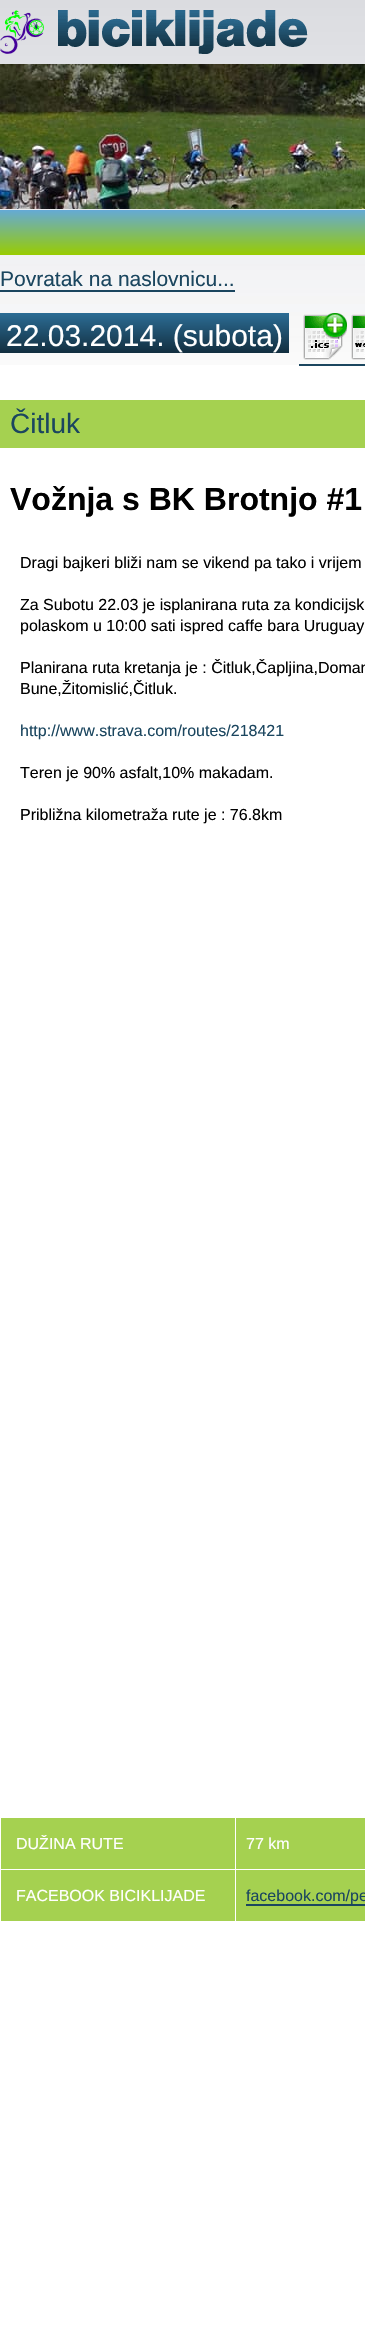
void draw(SkCanvas* canvas) {
  SkPaint paint;
  paint.setAntiAlias(true);
  auto face = [&](const char* family, int weight, float size, bool italic = false) {
    SkFontStyle style(weight, SkFontStyle::kNormal_Width,
      italic ? SkFontStyle::kItalic_Slant : SkFontStyle::kUpright_Slant);
    SkFont result(fontMgr->matchFamilyStyle(family, style), size);
    result.setSubpixel(true);
    return result;
  };
  auto paste = [&](const char* path, float x, float y, float w, float h) {
    auto image = SkImages::DeferredFromEncodedData(SkData::MakeFromFileName(path));
    canvas->drawImageRect(image, SkRect::MakeXYWH(x, y, w, h), SkSamplingOptions());
  };
  canvas->clear(0xffffffff);
  paste("img/1.png", 0, 0, 365, 365);
  paste("img/2.png", 0, 10, 44, 44);
  paste("img/3.png", 58, 10, 250, 44);
  paste("img/4.png", 0, 64, 365, 145);
  {
    const SkColor colors[] = {0xff65aad4, 0xff99cc00};
    const float stops[] = {0.01f, 1};
    const SkPoint ends[] = {{0, 210}, {0, 255}};
    paint.setShader(SkGradientShader::MakeLinear(ends, colors, stops, 2, SkTileMode::kClamp));
    paint.setAlpha(255);
  }
  canvas->drawRect(SkRect::MakeXYWH(0, 210, 365, 45), paint);
  paint.setShader(nullptr);
  paint.setColor(0xff1b465f);
  canvas->drawRect(SkRect::MakeXYWH(0, 290, 235, 2), paint);
  {
    const SkColor colors[] = {0xff2c6c94, 0xff122e3f};
    const float stops[] = {0.01f, 1};
    const SkPoint ends[] = {{145, 313}, {145, 353}};
    paint.setShader(SkGradientShader::MakeLinear(ends, colors, stops, 2, SkTileMode::kClamp));
    paint.setAlpha(255);
  }
  canvas->drawRect(SkRect::MakeXYWH(0, 313, 289, 40), paint);
  paste("img/5.png", 303, 313, 44, 47);
  paste("img/6.png", 351, 314, 14, 46);
  paint.setShader(nullptr);
  {
    const struct { float x, y, w, h; SkColor color; } items[] = {
      {299, 364, 66, 2, 0xff1b465f},
      {0, 400, 365, 48, 0xffa5d150},
      {1, 1818, 364, 103, 0xffa5d150},
      {235, 1869, 130, 1, 0xffffffff},
      {235, 1869, 1, 53, 0xffffffff},
      {0, 1869, 236, 1, 0xffffffff},
      {235, 1817, 1, 53, 0xffffffff},
      {246, 1904, 119, 2, 0xff1b465f},
    };
    for (auto [x, y, w, h, color] : items) {
      paint.setColor(color);
      canvas->drawRect(SkRect::MakeXYWH(x, y, w, h), paint);
    }
  }
  auto f0 = face("Liberation Sans", 400, 21);
  canvas->drawString("Povratak na naslovnicu...", 0, 286, f0, paint);
  auto f1 = face("Liberation Sans", 400, 30);
  paint.setColor(0xffffffff);
  canvas->drawString("22.03.2014. (subota)", 6, 346, f1, paint);
  auto f2 = face("Liberation Sans", 400, 28);
  paint.setColor(0xff1b465f);
  canvas->drawString("Čitluk", 10, 433, f2, paint);
  auto f3 = face("Liberation Sans", 700, 32);
  paint.setColor(0xff000000);
  canvas->drawString("Vožnja s BK Brotnjo #1", 10, 510, f3, paint);
  auto f4 = face("Liberation Sans", 400, 16);
  {
    const struct { const char* s; float x, y; } items[] = {
      {"Dragi bajkeri bliži nam se vikend pa tako i vrijem", 20, 568},
      {"Za Subotu 22.03 je isplanirana ruta za kondicijsk", 20, 610},
      {"polaskom u 10:00 sati ispred caffe bara Uruguay", 20, 631},
      {"Planirana ruta kretanja je : Čitluk,Čapljina,Doman", 20, 673},
      {"Bune,Žitomislić,Čitluk.", 20, 694},
    };
    for (auto [s, x, y] : items) {
      canvas->drawString(s, x, y, f4, paint);
    }
  }
  paint.setColor(0xff1b465f);
  canvas->drawString("http://www.strava.com/routes/218421", 20, 736, f4, paint);
  paint.setColor(0xff000000);
  canvas->drawString("Teren je 90% asfalt,10% makadam.", 20, 778, f4, paint);
  canvas->drawString("Približna kilometraža rute je : 76.8km", 20, 820, f4, paint);
  paint.setColor(0xffffffff);
  {
    const struct { const char* s; float x, y; } items[] = {
      {"DUŽINA RUTE", 16, 1849},
      {"77 km", 246, 1849},
      {"FACEBOOK BICIKLIJADE", 16, 1901},
    };
    for (auto [s, x, y] : items) {
      canvas->drawString(s, x, y, f4, paint);
    }
  }
  paint.setColor(0xff1b465f);
  canvas->drawString("facebook.com/pe", 246, 1901, f4, paint);
}
